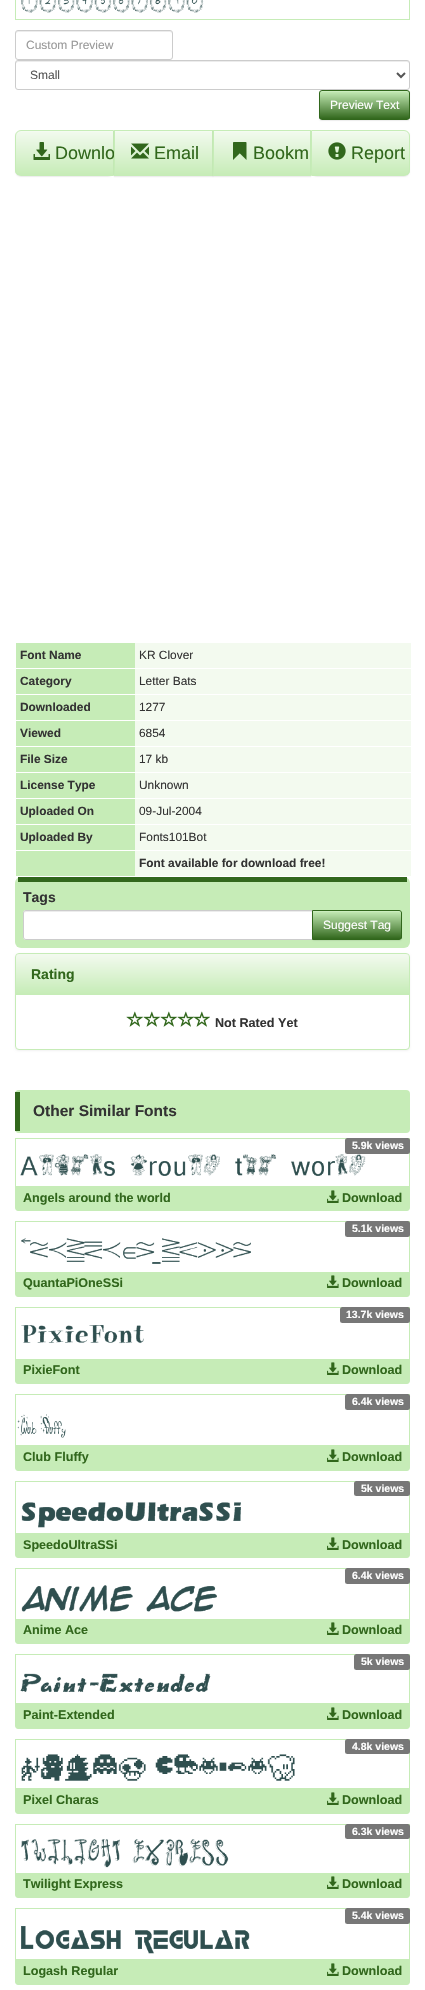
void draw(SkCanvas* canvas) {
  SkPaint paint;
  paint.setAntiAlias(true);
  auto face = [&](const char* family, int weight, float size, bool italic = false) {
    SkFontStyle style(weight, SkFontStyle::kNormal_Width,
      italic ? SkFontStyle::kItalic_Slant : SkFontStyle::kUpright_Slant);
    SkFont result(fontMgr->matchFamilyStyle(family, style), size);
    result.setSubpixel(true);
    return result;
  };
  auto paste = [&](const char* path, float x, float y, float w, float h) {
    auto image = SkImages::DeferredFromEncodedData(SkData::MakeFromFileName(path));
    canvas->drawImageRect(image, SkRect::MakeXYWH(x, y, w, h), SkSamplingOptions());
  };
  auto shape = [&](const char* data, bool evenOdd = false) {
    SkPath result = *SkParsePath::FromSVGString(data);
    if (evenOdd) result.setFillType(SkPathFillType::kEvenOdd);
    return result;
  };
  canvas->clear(0xffffffff);
  paint.setStroke(true);
  paint.setStrokeWidth(1);
  paint.setColor(0xffc6ecb7);
  canvas->drawRect(SkRect::MakeXYWH(15.5f, -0.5f, 394, 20), paint);
  paste("img/1.png", 21, 0, 183, 13);
  paint.setStroke(false);
  paint.setColor(0xffececec);
  canvas->drawPath(shape("M18 32H170C171 32 172 33 172 34C172 33 172 31 170 31H18C16 31 16 33 16 34C16 33 17 32 18 32Z"), paint);
  paint.setStroke(true);
  paint.setColor(0xffcccccc);
  canvas->drawRoundRect(SkRect::MakeXYWH(15.5f, 30.5f, 157, 29), 2.5f, 2.5f, paint);
  paint.setStroke(false);
  paint.setColor(0xffececec);
  canvas->drawPath(shape("M18 62H407C408 62 409 63 409 64C409 63 409 62 408 61H18L16 62V64C16 63 17 62 18 62Z"), paint);
  paint.setStroke(true);
  paint.setColor(0xffcccccc);
  canvas->drawRoundRect(SkRect::MakeXYWH(15.5f, 60.5f, 394, 29), 2.5f, 2.5f, paint);
  paint.setStrokeWidth(2);
  paint.setColor(0xff555555);
  canvas->drawPath(shape("M397 73L401 77L405 73"), paint);
  paint.setStroke(false);
  paint.setColor(0x12000000);
  paint.setMaskFilter(SkMaskFilter::MakeBlur(kNormal_SkBlurStyle, 0.5f));
  canvas->drawRoundRect(SkRect::MakeXYWH(319, 91, 91, 30), 3, 3, paint);
  paint.setMaskFilter(nullptr);
  canvas->save();
  canvas->clipPath(shape("M322 90H407C408.5 90 410 91.5 410 93V117C410 118.5 408.5 120 407 120H322C320.5 120 319 118.5 319 117V93C319 91.5 320.5 90 322 90Z"), true);
  {
    const SkColor colors[] = {0xffc6ecb7, 0xff31671c};
    const float stops[] = {0, 1};
    const SkPoint ends[] = {{365, 91}, {365, 119}};
    paint.setShader(SkGradientShader::MakeLinear(ends, colors, stops, 2, SkTileMode::kClamp));
    paint.setAlpha(255);
  }
  canvas->drawRect(SkRect::MakeXYWH(319, 91, 91, 28), paint);
  canvas->restore();
  paint.setShader(nullptr);
  paint.setColor(0x26ffffff);
  canvas->drawPath(shape("M322 92H407C408 92 409 93 409 94C409 87 395 91 393 91H336C334 91 320 87 320 94C320 93 321 92 322 92Z"), paint);
  paint.setStroke(true);
  paint.setStrokeWidth(1);
  paint.setColor(0xff31671c);
  canvas->drawRoundRect(SkRect::MakeXYWH(319.5f, 90.5f, 90, 29), 2.5f, 2.5f, paint);
  paint.setStroke(false);
  paint.setColor(0x12000000);
  paint.setMaskFilter(SkMaskFilter::MakeBlur(kNormal_SkBlurStyle, 0.5f));
  canvas->drawRoundRect(SkRect::MakeXYWH(15, 131, 99, 46), 6, 6, paint);
  paint.setMaskFilter(nullptr);
  canvas->save();
  canvas->clipPath(shape("M21 130H114V176H21C17.5 176 15 173.5 15 170V136C15 132.5 17.5 130 21 130Z"), true);
  {
    const SkColor colors[] = {0xfff3faef, 0xffc6ecb7};
    const float stops[] = {0, 1};
    const SkPoint ends[] = {{65, 131}, {65, 175}};
    paint.setShader(SkGradientShader::MakeLinear(ends, colors, stops, 2, SkTileMode::kClamp));
    paint.setAlpha(255);
  }
  canvas->drawRect(SkRect::MakeXYWH(15, 131, 98, 44), paint);
  canvas->restore();
  paint.setShader(nullptr);
  paint.setColor(0xfff4fbf1);
  canvas->drawPath(shape("M21 132H113V131H21C18 131 16 133 16 136V137C16 134 18 132 21 132Z"), paint);
  paint.setStroke(true);
  paint.setColor(0xffc6ecb7);
  canvas->drawPath(shape("M21 130.5H113.5V175.5H21C18 175.5 15.5 173 15.5 170V136C15.5 133 18 130.5 21 130.5Z"), paint);
  paste("img/2.png", 33, 142, 17, 18);
  paint.setStroke(false);
  paint.setColor(0x12000000);
  paint.setMaskFilter(SkMaskFilter::MakeBlur(kNormal_SkBlurStyle, 0.5f));
  canvas->drawRect(SkRect::MakeXYWH(114, 131, 99, 46), paint);
  paint.setMaskFilter(nullptr);
  {
    const SkColor colors[] = {0xfff3faef, 0xffc6ecb7};
    const float stops[] = {0, 1};
    const SkPoint ends[] = {{164, 131}, {164, 175}};
    paint.setShader(SkGradientShader::MakeLinear(ends, colors, stops, 2, SkTileMode::kClamp));
    paint.setAlpha(255);
  }
  canvas->drawRect(SkRect::MakeXYWH(115, 132, 97, 43), paint);
  paint.setShader(nullptr);
  {
    const struct { float x, y, w, h; SkColor color; } items[] = {
      {115, 131, 97, 1, 0xfff4fbf1},
      {16, 643, 119, 25, 0xffc6ecb7},
      {135, 643, 276, 25, 0xfff3faef},
      {16, 669, 119, 25, 0xffc6ecb7},
      {135, 669, 276, 25, 0xfff3faef},
      {16, 695, 119, 25, 0xffc6ecb7},
      {135, 695, 276, 25, 0xfff3faef},
      {16, 721, 119, 25, 0xffc6ecb7},
      {135, 721, 276, 25, 0xfff3faef},
      {16, 747, 119, 25, 0xffc6ecb7},
      {135, 747, 276, 25, 0xfff3faef},
      {16, 773, 119, 25, 0xffc6ecb7},
      {135, 773, 276, 25, 0xfff3faef},
      {16, 799, 119, 25, 0xffc6ecb7},
      {135, 799, 276, 25, 0xfff3faef},
      {16, 825, 119, 25, 0xffc6ecb7},
      {135, 825, 276, 25, 0xfff3faef},
      {16, 851, 119, 25, 0xffc6ecb7},
      {135, 851, 276, 25, 0xfff3faef},
    };
    for (auto [x, y, w, h, color] : items) {
      paint.setColor(color);
      canvas->drawRect(SkRect::MakeXYWH(x, y, w, h), paint);
    }
  }
  paint.setColor(0xffc6ecb7);
  canvas->drawRoundRect(SkRect::MakeXYWH(15, 877, 395, 71), 6, 6, paint);
  paint.setColor(0xff31671c);
  canvas->drawRect(SkRect::MakeXYWH(18, 877, 389, 5), paint);
  paint.setColor(0xffffffff);
  canvas->drawPath(shape("M26 910H313V940H26C24.5 940 23 938.5 23 937V913C23 911.5 24.5 910 26 910Z"), paint);
  paint.setColor(0xffececec);
  canvas->drawPath(shape("M26 912H312V911H25L24 914C24 913 25 912 26 912Z"), paint);
  paint.setStroke(true);
  paint.setColor(0xffcccccc);
  canvas->drawPath(shape("M26 910.5H312.5V939.5H26C24.5 939.5 23.5 938.5 23.5 937V913C23.5 911.5 24.5 910.5 26 910.5Z"), paint);
  paint.setStroke(false);
  paint.setColor(0x12000000);
  paint.setMaskFilter(SkMaskFilter::MakeBlur(kNormal_SkBlurStyle, 0.5f));
  canvas->drawRoundRect(SkRect::MakeXYWH(312, 911, 90, 30), 3, 3, paint);
  paint.setMaskFilter(nullptr);
  canvas->save();
  canvas->clipPath(shape("M312 910H399C400.5 910 402 911.5 402 913V937C402 938.5 400.5 940 399 940H312Z"), true);
  {
    const SkColor colors[] = {0xffc6ecb7, 0xff31671c};
    const float stops[] = {0, 1};
    const SkPoint ends[] = {{357, 911}, {357, 939}};
    paint.setShader(SkGradientShader::MakeLinear(ends, colors, stops, 2, SkTileMode::kClamp));
    paint.setAlpha(255);
  }
  canvas->drawRect(SkRect::MakeXYWH(313, 911, 89, 28), paint);
  canvas->restore();
  paint.setShader(nullptr);
  paint.setColor(0x26ffffff);
  canvas->drawPath(shape("M313 912H399C400 912 401 913 401 914V913C401 912 400 911 399 911H313Z"), paint);
  paint.setStroke(true);
  paint.setColor(0xff31671c);
  canvas->drawPath(shape("M312.5 910.5H399C400.5 910.5 401.5 911.5 401.5 913V937C401.5 938.5 400.5 939.5 399 939.5H312.5Z"), paint);
  paint.setStroke(false);
  paint.setColor(0x0d000000);
  paint.setMaskFilter(SkMaskFilter::MakeBlur(kNormal_SkBlurStyle, 1));
  canvas->drawRoundRect(SkRect::MakeXYWH(15, 954, 395, 97), 4, 4, paint);
  paint.setMaskFilter(nullptr);
  paint.setColor(0xffffffff);
  canvas->drawRoundRect(SkRect::MakeXYWH(15.5f, 953.5f, 394, 96), 3.5f, 3.5f, paint);
  paint.setStroke(true);
  paint.setColor(0xffc6ecb7);
  canvas->drawRoundRect(SkRect::MakeXYWH(15.5f, 953.5f, 394, 96), 3.5f, 3.5f, paint);
  paint.setStroke(false);
  canvas->drawPath(shape("M19 954H406C407.5 954 409 955.5 409 957V995H16V957C16 955.5 17.5 954 19 954Z"), paint);
  {
    const SkColor colors[] = {0xfff3faef, 0xffc6ecb7};
    const float stops[] = {0, 1};
    const SkPoint ends[] = {{213, 954}, {213, 994}};
    paint.setShader(SkGradientShader::MakeLinear(ends, colors, stops, 2, SkTileMode::kClamp));
    paint.setAlpha(255);
  }
  canvas->drawPath(shape("M19 954H406C407.5 954 409 955.5 409 957V994H16V957C16 955.5 17.5 954 19 954Z"), paint);
  paste("img/6.png", 126, 1011, 17, 16);
  paste("img/6.png", 143, 1011, 17, 16);
  paste("img/6.png", 160, 1011, 17, 16);
  paste("img/6.png", 177, 1011, 17, 16);
  paste("img/7.png", 193, 1011, 17, 16);
  paint.setShader(nullptr);
  paint.setColor(0xffc6ecb7);
  canvas->drawRoundRect(SkRect::MakeXYWH(15, 1090, 395, 43), 4, 4, paint);
  paint.setColor(0xff31671c);
  canvas->drawRect(SkRect::MakeXYWH(15, 1092, 5, 39), paint);
  paint.setStroke(true);
  paint.setColor(0xffc6ecb7);
  canvas->drawRect(SkRect::MakeXYWH(15.5f, 1138.5f, 394, 48), paint);
  paste("img/8.png", 20, 1154, 346, 22);
  paint.setStroke(false);
  paint.setColor(0xff777777);
  canvas->drawRoundRect(SkRect::MakeXYWH(345, 1138, 65, 16), 2.5f, 2.5f, paint);
  paint.setColor(0xffc6ecb7);
  canvas->drawPath(shape("M15 1187H410V1208C410 1209.5 408.5 1211 407 1211H18C16.5 1211 15 1209.5 15 1208Z"), paint);
  paste("img/9.png", 327, 1190, 12, 13);
  paint.setStroke(true);
  canvas->drawRect(SkRect::MakeXYWH(15.5f, 1221.5f, 394, 51), paint);
  paste("img/10.png", 21, 1238, 230, 26);
  paint.setStroke(false);
  paint.setColor(0xff777777);
  canvas->drawRoundRect(SkRect::MakeXYWH(345, 1221, 65, 16), 2.5f, 2.5f, paint);
  paint.setColor(0xffc6ecb7);
  canvas->drawPath(shape("M15 1273H410V1294C410 1295.5 408.5 1297 407 1297H18C16.5 1297 15 1295.5 15 1294Z"), paint);
  paste("img/9.png", 327, 1275, 12, 13);
  paint.setStroke(true);
  canvas->drawRect(SkRect::MakeXYWH(15.5f, 1307.5f, 394, 52), paint);
  paste("img/11.png", 21, 1325, 123, 19);
  paint.setStroke(false);
  paint.setColor(0xff777777);
  canvas->drawRoundRect(SkRect::MakeXYWH(340, 1307, 70, 16), 2.5f, 2.5f, paint);
  paint.setColor(0xffc6ecb7);
  canvas->drawPath(shape("M15 1360H410V1381C410 1382.5 408.5 1384 407 1384H18C16.5 1384 15 1382.5 15 1381Z"), paint);
  paste("img/9.png", 327, 1362, 12, 13);
  paint.setStroke(true);
  canvas->drawRect(SkRect::MakeXYWH(15.5f, 1394.5f, 394, 51), paint);
  paste("img/12.png", 17, 1414, 49, 24);
  paint.setStroke(false);
  paint.setColor(0xff777777);
  canvas->drawRoundRect(SkRect::MakeXYWH(345, 1394, 65, 16), 2.5f, 2.5f, paint);
  paint.setColor(0xffc6ecb7);
  canvas->drawPath(shape("M15 1446H410V1468C410 1469.5 408.5 1471 407 1471H18C16.5 1471 15 1469.5 15 1468Z"), paint);
  paste("img/9.png", 327, 1449, 12, 13);
  paint.setStroke(true);
  canvas->drawRect(SkRect::MakeXYWH(15.5f, 1481.5f, 394, 52), paint);
  paste("img/13.png", 21, 1502, 220, 26);
  paint.setStroke(false);
  paint.setColor(0xff777777);
  canvas->drawRoundRect(SkRect::MakeXYWH(354, 1481, 56, 15), 2.5f, 2.5f, paint);
  paint.setColor(0xffc6ecb7);
  canvas->drawPath(shape("M15 1534H410V1555C410 1556.5 408.5 1558 407 1558H18C16.5 1558 15 1556.5 15 1555Z"), paint);
  paste("img/9.png", 327, 1537, 12, 13);
  paint.setStroke(true);
  canvas->drawRect(SkRect::MakeXYWH(15.5f, 1568.5f, 394, 51), paint);
  paste("img/14.png", 21, 1585, 196, 27);
  paint.setStroke(false);
  paint.setColor(0xff777777);
  canvas->drawRoundRect(SkRect::MakeXYWH(345, 1568, 65, 16), 2.5f, 2.5f, paint);
  paint.setColor(0xffc6ecb7);
  canvas->drawPath(shape("M15 1620H410V1641C410 1642.5 408.5 1644 407 1644H18C16.5 1644 15 1642.5 15 1641Z"), paint);
  paste("img/9.png", 327, 1622, 12, 13);
  paint.setStroke(true);
  canvas->drawRect(SkRect::MakeXYWH(15.5f, 1654.5f, 394, 49), paint);
  paste("img/15.png", 20, 1673, 191, 19);
  paint.setStroke(false);
  paint.setColor(0xff777777);
  canvas->drawRoundRect(SkRect::MakeXYWH(354, 1654, 56, 16), 2.5f, 2.5f, paint);
  paint.setColor(0xffc6ecb7);
  canvas->drawPath(shape("M15 1704H410V1726C410 1727.5 408.5 1729 407 1729H18C16.5 1729 15 1727.5 15 1726Z"), paint);
  paste("img/9.png", 327, 1707, 12, 13);
  paint.setStroke(true);
  canvas->drawRect(SkRect::MakeXYWH(15.5f, 1739.5f, 394, 49), paint);
  paste("img/16.png", 21, 1754, 274, 27);
  paint.setStroke(false);
  paint.setColor(0xff777777);
  canvas->drawRoundRect(SkRect::MakeXYWH(345, 1739, 65, 15), 2.5f, 2.5f, paint);
  paint.setColor(0xffc6ecb7);
  canvas->drawPath(shape("M15 1789H410V1811C410 1812.5 408.5 1814 407 1814H18C16.5 1814 15 1812.5 15 1811Z"), paint);
  paste("img/9.png", 327, 1792, 12, 13);
  paint.setStroke(true);
  canvas->drawRect(SkRect::MakeXYWH(15.5f, 1824.5f, 394, 49), paint);
  paste("img/17.png", 21, 1839, 208, 29);
  paint.setStroke(false);
  paint.setColor(0xff777777);
  canvas->drawRoundRect(SkRect::MakeXYWH(345, 1824, 65, 15), 2.5f, 2.5f, paint);
  paint.setColor(0xffc6ecb7);
  canvas->drawPath(shape("M15 1874H410V1895C410 1896.5 408.5 1898 407 1898H18C16.5 1898 15 1896.5 15 1895Z"), paint);
  paste("img/9.png", 327, 1876, 12, 13);
  paint.setStroke(true);
  canvas->drawRect(SkRect::MakeXYWH(15.5f, 1908.5f, 394, 51), paint);
  paste("img/18.png", 21, 1926, 229, 28);
  paint.setStroke(false);
  paint.setColor(0xff777777);
  canvas->drawRoundRect(SkRect::MakeXYWH(345, 1908, 65, 16), 2.5f, 2.5f, paint);
  paint.setColor(0xffc6ecb7);
  canvas->drawPath(shape("M15 1960H410V1982C410 1983.5 408.5 1985 407 1985H18C16.5 1985 15 1983.5 15 1982Z"), paint);
  paste("img/9.png", 327, 1963, 12, 13);
  auto f0 = face("Liberation Sans", 400, 12);
  paint.setColor(0xff999999);
  canvas->drawString("Custom Preview", 26, 49, f0, paint);
  paint.setColor(0xff555555);
  canvas->drawString("Small", 30, 79, f0, paint);
  paint.setColor(0xffffffff);
  canvas->drawString("Preview Text", 330, 109, f0, paint);
  auto f1 = face("Liberation Sans", 400, 18);
  paint.setColor(0xff31671c);
  canvas->drawString("Downlo", 55, 159, f1, paint);
  paint.setStroke(true);
  paint.setColor(0xffc6ecb7);
  canvas->drawRect(SkRect::MakeXYWH(114.5f, 130.5f, 98, 45), paint);
  paste("img/3.png", 131, 143, 18, 16);
  paint.setStroke(false);
  paint.setColor(0xff31671c);
  canvas->drawString("Email", 154, 159, f1, paint);
  paint.setColor(0x12000000);
  paint.setMaskFilter(SkMaskFilter::MakeBlur(kNormal_SkBlurStyle, 0.5f));
  canvas->drawRect(SkRect::MakeXYWH(213, 131, 98, 46), paint);
  paint.setMaskFilter(nullptr);
  {
    const SkColor colors[] = {0xfff3faef, 0xffc6ecb7};
    const float stops[] = {0, 1};
    const SkPoint ends[] = {{262, 131}, {262, 175}};
    paint.setShader(SkGradientShader::MakeLinear(ends, colors, stops, 2, SkTileMode::kClamp));
    paint.setAlpha(255);
  }
  canvas->drawRect(SkRect::MakeXYWH(214, 132, 96, 43), paint);
  paint.setShader(nullptr);
  paint.setColor(0xfff4fbf1);
  canvas->drawRect(SkRect::MakeXYWH(214, 131, 96, 1), paint);
  paint.setStroke(true);
  paint.setColor(0xffc6ecb7);
  canvas->drawRect(SkRect::MakeXYWH(213.5f, 130.5f, 97, 45), paint);
  paste("img/4.png", 233, 142, 14, 18);
  paint.setStroke(false);
  paint.setColor(0xff31671c);
  canvas->drawString("Bookm", 253, 159, f1, paint);
  paint.setColor(0x12000000);
  paint.setMaskFilter(SkMaskFilter::MakeBlur(kNormal_SkBlurStyle, 0.5f));
  canvas->drawRoundRect(SkRect::MakeXYWH(311, 131, 99, 46), 6, 6, paint);
  paint.setMaskFilter(nullptr);
  canvas->save();
  canvas->clipPath(shape("M311 130H404C407.5 130 410 132.5 410 136V170C410 173.5 407.5 176 404 176H311Z"), true);
  {
    const SkColor colors[] = {0xfff3faef, 0xffc6ecb7};
    const float stops[] = {0, 1};
    const SkPoint ends[] = {{361, 131}, {361, 175}};
    paint.setShader(SkGradientShader::MakeLinear(ends, colors, stops, 2, SkTileMode::kClamp));
    paint.setAlpha(255);
  }
  canvas->drawRect(SkRect::MakeXYWH(312, 131, 98, 44), paint);
  canvas->restore();
  paint.setShader(nullptr);
  paint.setColor(0xfff4fbf1);
  canvas->drawPath(shape("M312 132H404C407 132 409 134 409 137V136C409 133 407 131 404 131H312Z"), paint);
  paint.setStroke(true);
  paint.setColor(0xffc6ecb7);
  canvas->drawPath(shape("M311.5 130.5H404C407 130.5 409.5 133 409.5 136V170C409.5 173 407 175.5 404 175.5H311.5Z"), paint);
  paste("img/5.png", 328, 142, 18, 18);
  paint.setStroke(false);
  paint.setColor(0xff31671c);
  canvas->drawString("Report", 351, 159, f1, paint);
  auto f2 = face("Liberation Sans", 700, 11.9f);
  paint.setColor(0xff333333);
  canvas->drawString("Font Name", 20, 659, f2, paint);
  auto f3 = face("Liberation Sans", 400, 11.9f);
  canvas->drawString("KR Clover", 139, 659, f3, paint);
  canvas->drawString("Category", 20, 685, f2, paint);
  canvas->drawString("Letter Bats", 139, 685, f3, paint);
  canvas->drawString("Downloaded", 20, 711, f2, paint);
  canvas->drawString("1277", 139, 711, f3, paint);
  canvas->drawString("Viewed", 20, 737, f2, paint);
  canvas->drawString("6854", 139, 737, f3, paint);
  canvas->drawString("File Size", 20, 763, f2, paint);
  canvas->drawString("17 kb", 139, 763, f3, paint);
  canvas->drawString("License Type", 20, 789, f2, paint);
  canvas->drawString("Unknown", 139, 789, f3, paint);
  canvas->drawString("Uploaded On", 20, 815, f2, paint);
  canvas->drawString("09-Jul-2004", 139, 815, f3, paint);
  canvas->drawString("Uploaded By", 20, 841, f2, paint);
  canvas->drawString("Fonts101Bot", 139, 841, f3, paint);
  canvas->drawString("Font available for download free!", 139, 867, f2, paint);
  auto f4 = face("Liberation Sans", 700, 14);
  canvas->drawString("Tags", 23, 902, f4, paint);
  paint.setColor(0xffffffff);
  canvas->drawString("Suggest Tag", 323, 929, f0, paint);
  paint.setColor(0xff31671c);
  canvas->drawString("Rating", 31, 979, f4, paint);
  auto f5 = face("Liberation Sans", 700, 12.6f);
  paint.setColor(0xff333333);
  canvas->drawString("Not Rated Yet", 215, 1027, f5, paint);
  auto f6 = face("Liberation Sans", 700, 15.5f);
  canvas->drawString("Other Similar Fonts", 33, 1116, f6, paint);
  auto f7 = face("Liberation Sans", 700, 10.5f);
  paint.setColor(0xffffffff);
  canvas->drawString("5.9k views", 352, 1149, f7, paint);
  paint.setColor(0xff31671c);
  canvas->drawString("Angels around the world", 23, 1202, f5, paint);
  canvas->drawString("Download", 342, 1202, f5, paint);
  paint.setColor(0xffffffff);
  canvas->drawString("5.1k views", 352, 1232, f7, paint);
  paint.setColor(0xff31671c);
  canvas->drawString("QuantaPiOneSSi", 23, 1287, f5, paint);
  canvas->drawString("Download", 342, 1287, f5, paint);
  paint.setColor(0xffffffff);
  canvas->drawString("13.7k views", 346, 1318, f7, paint);
  paint.setColor(0xff31671c);
  canvas->drawString("PixieFont", 23, 1374, f5, paint);
  canvas->drawString("Download", 342, 1374, f5, paint);
  paint.setColor(0xffffffff);
  canvas->drawString("6.4k views", 352, 1405, f7, paint);
  paint.setColor(0xff31671c);
  canvas->drawString("Club Fluffy", 23, 1461, f5, paint);
  canvas->drawString("Download", 342, 1461, f5, paint);
  paint.setColor(0xffffffff);
  canvas->drawString("5k views", 361, 1492, f7, paint);
  paint.setColor(0xff31671c);
  canvas->drawString("SpeedoUltraSSi", 23, 1549, f5, paint);
  canvas->drawString("Download", 342, 1549, f5, paint);
  paint.setColor(0xffffffff);
  canvas->drawString("6.4k views", 352, 1579, f7, paint);
  paint.setColor(0xff31671c);
  canvas->drawString("Anime Ace", 23, 1634, f5, paint);
  canvas->drawString("Download", 342, 1634, f5, paint);
  paint.setColor(0xffffffff);
  canvas->drawString("5k views", 361, 1665, f7, paint);
  paint.setColor(0xff31671c);
  canvas->drawString("Paint-Extended", 23, 1719, f5, paint);
  canvas->drawString("Download", 342, 1719, f5, paint);
  paint.setColor(0xffffffff);
  canvas->drawString("4.8k views", 352, 1750, f7, paint);
  paint.setColor(0xff31671c);
  canvas->drawString("Pixel Charas", 23, 1804, f5, paint);
  canvas->drawString("Download", 342, 1804, f5, paint);
  paint.setColor(0xffffffff);
  canvas->drawString("6.3k views", 352, 1835, f7, paint);
  paint.setColor(0xff31671c);
  canvas->drawString("Twilight Express", 23, 1888, f5, paint);
  canvas->drawString("Download", 342, 1888, f5, paint);
  paint.setColor(0xffffffff);
  canvas->drawString("5.4k views", 352, 1919, f7, paint);
  paint.setColor(0xff31671c);
  canvas->drawString("Logash Regular", 23, 1975, f5, paint);
  canvas->drawString("Download", 342, 1975, f5, paint);
}
